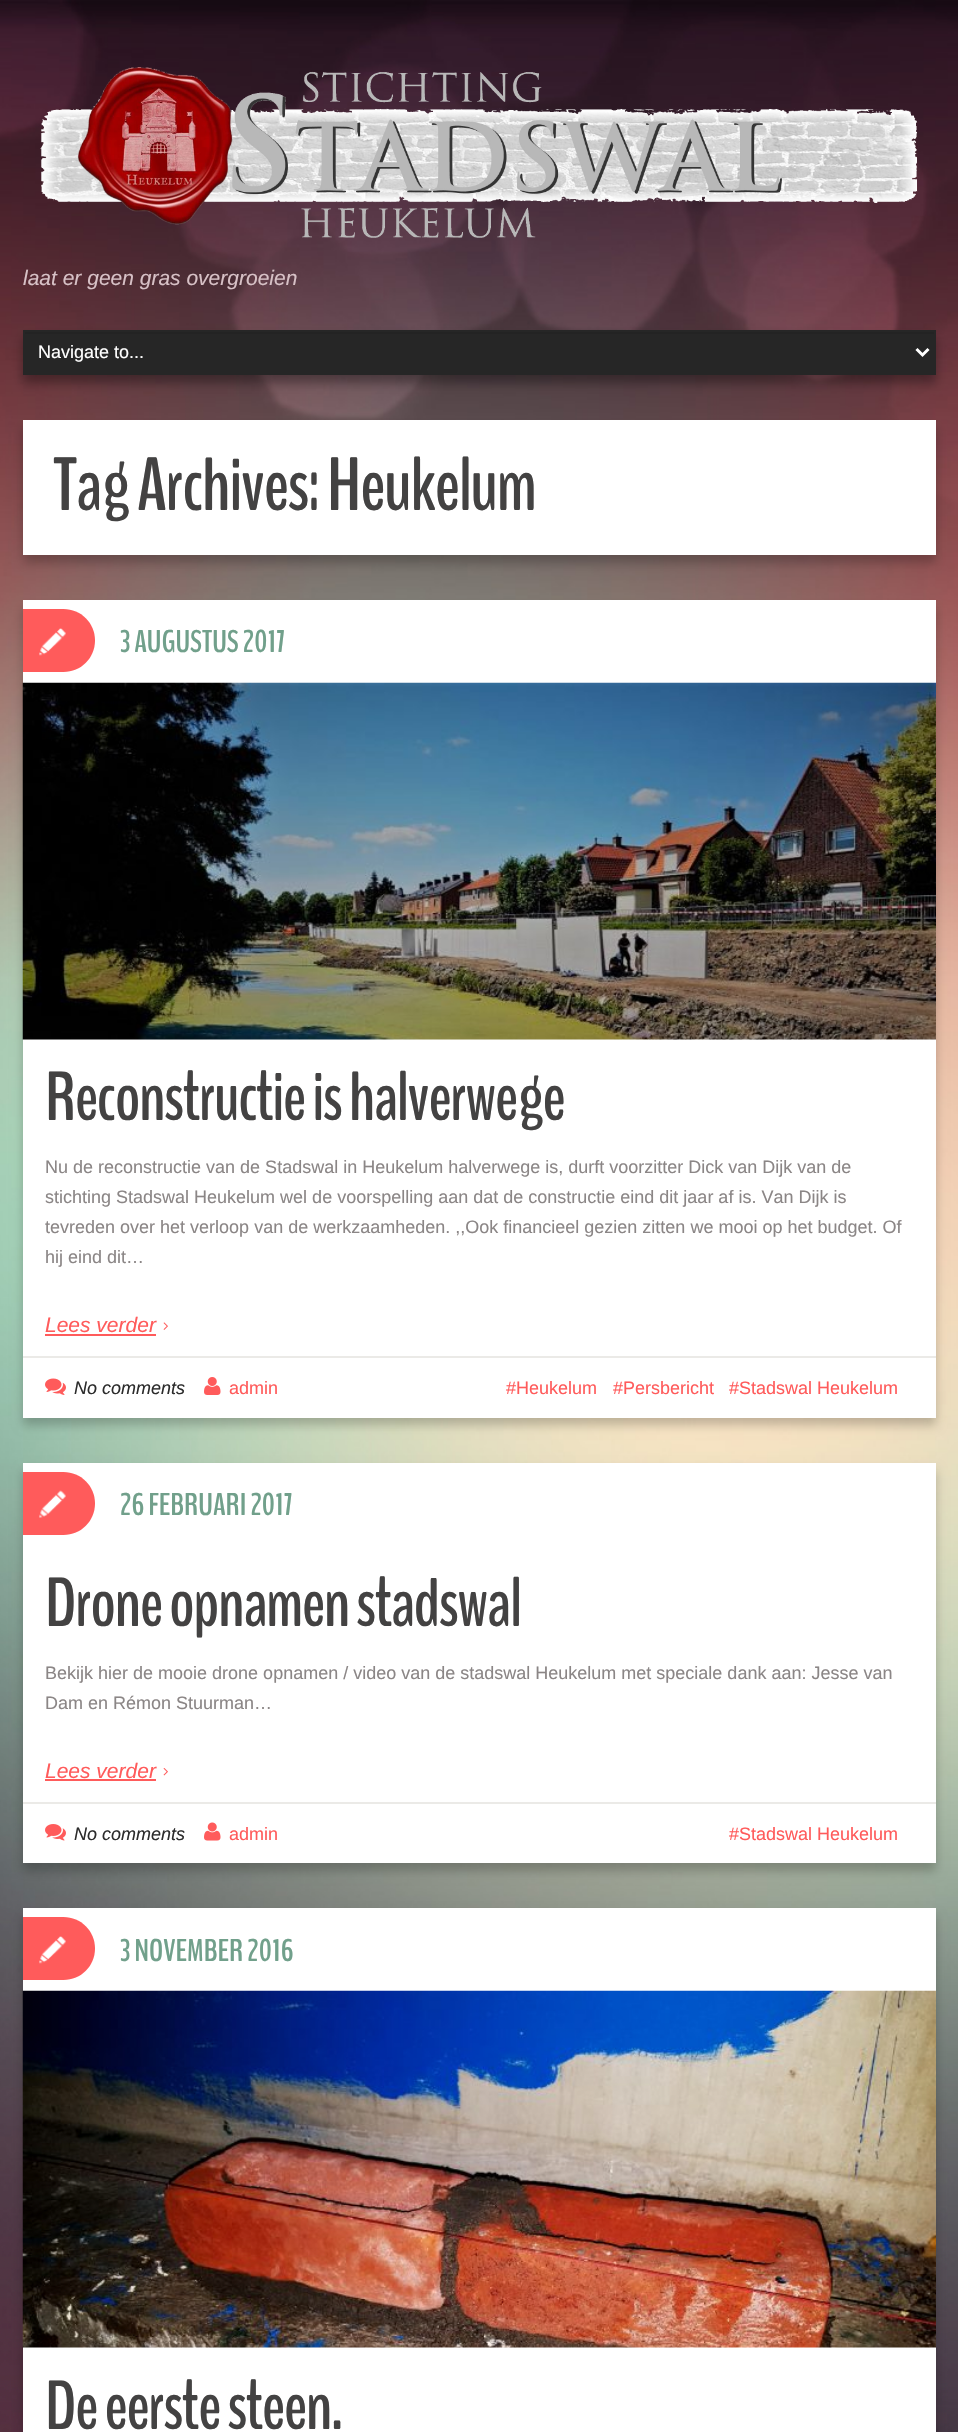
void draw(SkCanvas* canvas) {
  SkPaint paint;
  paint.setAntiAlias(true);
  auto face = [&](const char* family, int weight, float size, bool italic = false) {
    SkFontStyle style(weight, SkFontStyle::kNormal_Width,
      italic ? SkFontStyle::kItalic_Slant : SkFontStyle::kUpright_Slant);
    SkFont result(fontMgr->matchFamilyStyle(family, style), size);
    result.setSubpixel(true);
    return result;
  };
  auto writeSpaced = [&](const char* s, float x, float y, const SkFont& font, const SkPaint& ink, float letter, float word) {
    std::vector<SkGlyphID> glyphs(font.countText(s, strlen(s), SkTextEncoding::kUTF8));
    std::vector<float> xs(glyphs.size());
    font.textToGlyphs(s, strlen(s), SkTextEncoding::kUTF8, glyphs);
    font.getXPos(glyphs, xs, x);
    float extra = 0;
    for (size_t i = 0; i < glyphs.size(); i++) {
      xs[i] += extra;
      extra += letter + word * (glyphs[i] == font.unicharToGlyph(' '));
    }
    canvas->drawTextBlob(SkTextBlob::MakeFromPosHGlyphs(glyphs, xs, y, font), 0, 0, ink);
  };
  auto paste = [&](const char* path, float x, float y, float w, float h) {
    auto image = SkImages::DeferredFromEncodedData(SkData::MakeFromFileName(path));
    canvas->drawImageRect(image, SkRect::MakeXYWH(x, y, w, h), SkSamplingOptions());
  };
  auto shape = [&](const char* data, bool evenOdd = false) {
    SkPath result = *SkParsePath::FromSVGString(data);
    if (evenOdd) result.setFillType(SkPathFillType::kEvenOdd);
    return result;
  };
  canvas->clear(0xffffffff);
  paste("img/1.png", 0, 0, 958, 2432);
  paste("img/2.png", 40, 67, 878, 171);
  paint.setColor(0x54000000);
  paint.setMaskFilter(SkMaskFilter::MakeBlur(kNormal_SkBlurStyle, 5));
  canvas->drawRect(SkRect::MakeXYWH(23, 338, 913, 45), paint);
  paint.setMaskFilter(nullptr);
  paint.setColor(0xff262626);
  canvas->drawRect(SkRect::MakeXYWH(25, 334, 909, 39), paint);
  paint.setColor(0xff232323);
  canvas->drawRect(SkRect::MakeXYWH(24, 332, 911, 2), paint);
  paint.setStroke(true);
  paint.setStrokeWidth(2);
  paint.setColor(0xff262626);
  canvas->drawRect(SkRect::MakeXYWH(24, 331, 911, 43), paint);
  paint.setStrokeWidth(3);
  paint.setColor(0xffffffff);
  canvas->drawPath(shape("M916.5 349L922.5 355L928.5 349"), paint);
  paint.setStroke(false);
  paint.setColor(0x38000000);
  paint.setMaskFilter(SkMaskFilter::MakeBlur(kNormal_SkBlurStyle, 5));
  canvas->drawRect(SkRect::MakeXYWH(23, 428, 913, 135), paint);
  paint.setMaskFilter(nullptr);
  paint.setColor(0xffffffff);
  canvas->drawRect(SkRect::MakeXYWH(23, 420, 913, 135), paint);
  paint.setColor(0x38000000);
  paint.setMaskFilter(SkMaskFilter::MakeBlur(kNormal_SkBlurStyle, 5));
  canvas->drawRect(SkRect::MakeXYWH(23, 608, 913, 817), paint);
  paint.setMaskFilter(nullptr);
  paint.setColor(0xffffffff);
  canvas->drawRect(SkRect::MakeXYWH(23, 600, 913, 818), paint);
  paint.setColor(0xffff5b5b);
  canvas->drawPath(shape("M23 609H63.5C81 609 95 623 95 640.5C95 658 81 672 63.5 672H23Z"), paint);
  paste("img/3.png", 39, 628, 27, 28);
  paste("img/4.png", 22, 682, 914, 358);
  canvas->drawRect(SkRect::MakeXYWH(45, 1334, 111, 2), paint);
  paste("img/5.png", 163, 1322, 5, 8);
  paint.setColor(0xffebeae7);
  canvas->drawRect(SkRect::MakeXYWH(23, 1356, 913, 2), paint);
  paste("img/6.png", 45, 1378, 21, 17);
  paste("img/7.png", 204, 1377, 17, 18);
  paint.setColor(0x38000000);
  paint.setMaskFilter(SkMaskFilter::MakeBlur(kNormal_SkBlurStyle, 5));
  canvas->drawRect(SkRect::MakeXYWH(23, 1470, 913, 401), paint);
  paint.setMaskFilter(nullptr);
  paint.setColor(0xffffffff);
  canvas->drawRect(SkRect::MakeXYWH(23, 1463, 913, 400), paint);
  paint.setColor(0xffff5b5b);
  canvas->drawPath(shape("M23 1472H63.5C81 1472 95 1486 95 1503.5C95 1521 81 1535 63.5 1535H23Z"), paint);
  paste("img/8.png", 39, 1490, 27, 28);
  canvas->drawRect(SkRect::MakeXYWH(45, 1779, 111, 2), paint);
  paste("img/9.png", 163, 1768, 5, 8);
  paint.setColor(0xffebeae7);
  canvas->drawRect(SkRect::MakeXYWH(23, 1802, 913, 2), paint);
  paste("img/10.png", 45, 1824, 21, 17);
  paste("img/11.png", 204, 1822, 17, 19);
  paint.setColor(0x38000000);
  paint.setMaskFilter(SkMaskFilter::MakeBlur(kNormal_SkBlurStyle, 5));
  canvas->drawRect(SkRect::MakeXYWH(23, 1916, 913, 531), paint);
  paint.setMaskFilter(nullptr);
  paint.setColor(0xffffffff);
  canvas->drawRect(SkRect::MakeXYWH(23, 1908, 913, 524), paint);
  paint.setColor(0xffff5b5b);
  canvas->drawPath(shape("M23 1917H63.5C81 1917 95 1931 95 1948.5C95 1966 81 1980 63.5 1980H23Z"), paint);
  paste("img/3.png", 39, 1936, 27, 28);
  paste("img/12.png", 22, 1990, 914, 358);
  auto f0 = face("Liberation Sans", 400, 21, true);
  paint.setColor(0xffd7c1c6);
  canvas->drawString("laat er geen gras overgroeien", 23, 285, f0, paint);
  auto f1 = face("Liberation Sans", 400, 18);
  paint.setColor(0xffffffff);
  canvas->drawString("Navigate to...", 38, 358, f1, paint);
  auto f2 = face("BenchNine", 700, 75);
  paint.setColor(0xff434242);
  writeSpaced("Tag Archives: Heukelum", 53, 510, f2, paint, -1.5f, 0);
  auto f3 = face("BenchNine", 700, 31.5f);
  paint.setColor(0xff71a08b);
  canvas->drawString("3 AUGUSTUS 2017", 120, 652, f3, paint);
  auto f4 = face("BenchNine", 700, 69);
  paint.setColor(0xff434242);
  writeSpaced("Reconstructie is halverwege", 45, 1120, f4, paint, -1.5f, 0);
  paint.setColor(0xff8b8686);
  {
    const struct { const char* s; float x, y; } items[] = {
      {"Nu de reconstructie van de Stadswal in Heukelum halverwege is, durft voorzitter Dick van Dijk van de", 45, 1173},
      {"stichting Stadswal Heukelum wel de voorspelling aan dat de constructie eind dit jaar af is. Van Dijk is", 45, 1203},
      {"tevreden over het verloop van de werkzaamheden. ,,Ook financieel gezien zitten we mooi op het budget. Of", 45, 1233},
      {"hij eind dit…", 45, 1263},
    };
    for (auto [s, x, y] : items) {
      canvas->drawString(s, x, y, f1, paint);
    }
  }
  paint.setColor(0xffff5b5b);
  canvas->drawString("Lees verder", 45, 1332, f0, paint);
  auto f5 = face("Liberation Sans", 400, 18, true);
  paint.setColor(0xff2c2c2c);
  canvas->drawString("No comments", 74, 1394, f5, paint);
  paint.setColor(0xffff5b5b);
  {
    const struct { const char* s; float x, y; } items[] = {
      {"admin", 229, 1394},
      {"#Heukelum", 506, 1394},
      {"#Persbericht", 613, 1394},
      {"#Stadswal Heukelum", 729, 1394},
    };
    for (auto [s, x, y] : items) {
      canvas->drawString(s, x, y, f1, paint);
    }
  }
  paint.setColor(0xff71a08b);
  canvas->drawString("26 FEBRUARI 2017", 120, 1515, f3, paint);
  paint.setColor(0xff434242);
  writeSpaced("Drone opnamen stadswal", 45, 1626, f4, paint, -1.5f, 0);
  paint.setColor(0xff8b8686);
  canvas->drawString("Bekijk hier de mooie drone opnamen / video van de stadswal Heukelum met speciale dank aan: Jesse van", 45, 1679, f1, paint);
  canvas->drawString("Dam en Rémon Stuurman…", 45, 1709, f1, paint);
  paint.setColor(0xffff5b5b);
  canvas->drawString("Lees verder", 45, 1778, f0, paint);
  paint.setColor(0xff2c2c2c);
  canvas->drawString("No comments", 74, 1840, f5, paint);
  paint.setColor(0xffff5b5b);
  canvas->drawString("admin", 229, 1840, f1, paint);
  canvas->drawString("#Stadswal Heukelum", 729, 1840, f1, paint);
  paint.setColor(0xff71a08b);
  canvas->drawString("3 NOVEMBER 2016", 120, 1961, f3, paint);
  paint.setColor(0xff434242);
  writeSpaced("De eerste steen.", 45, 2429, f4, paint, -1.5f, 0);
}
